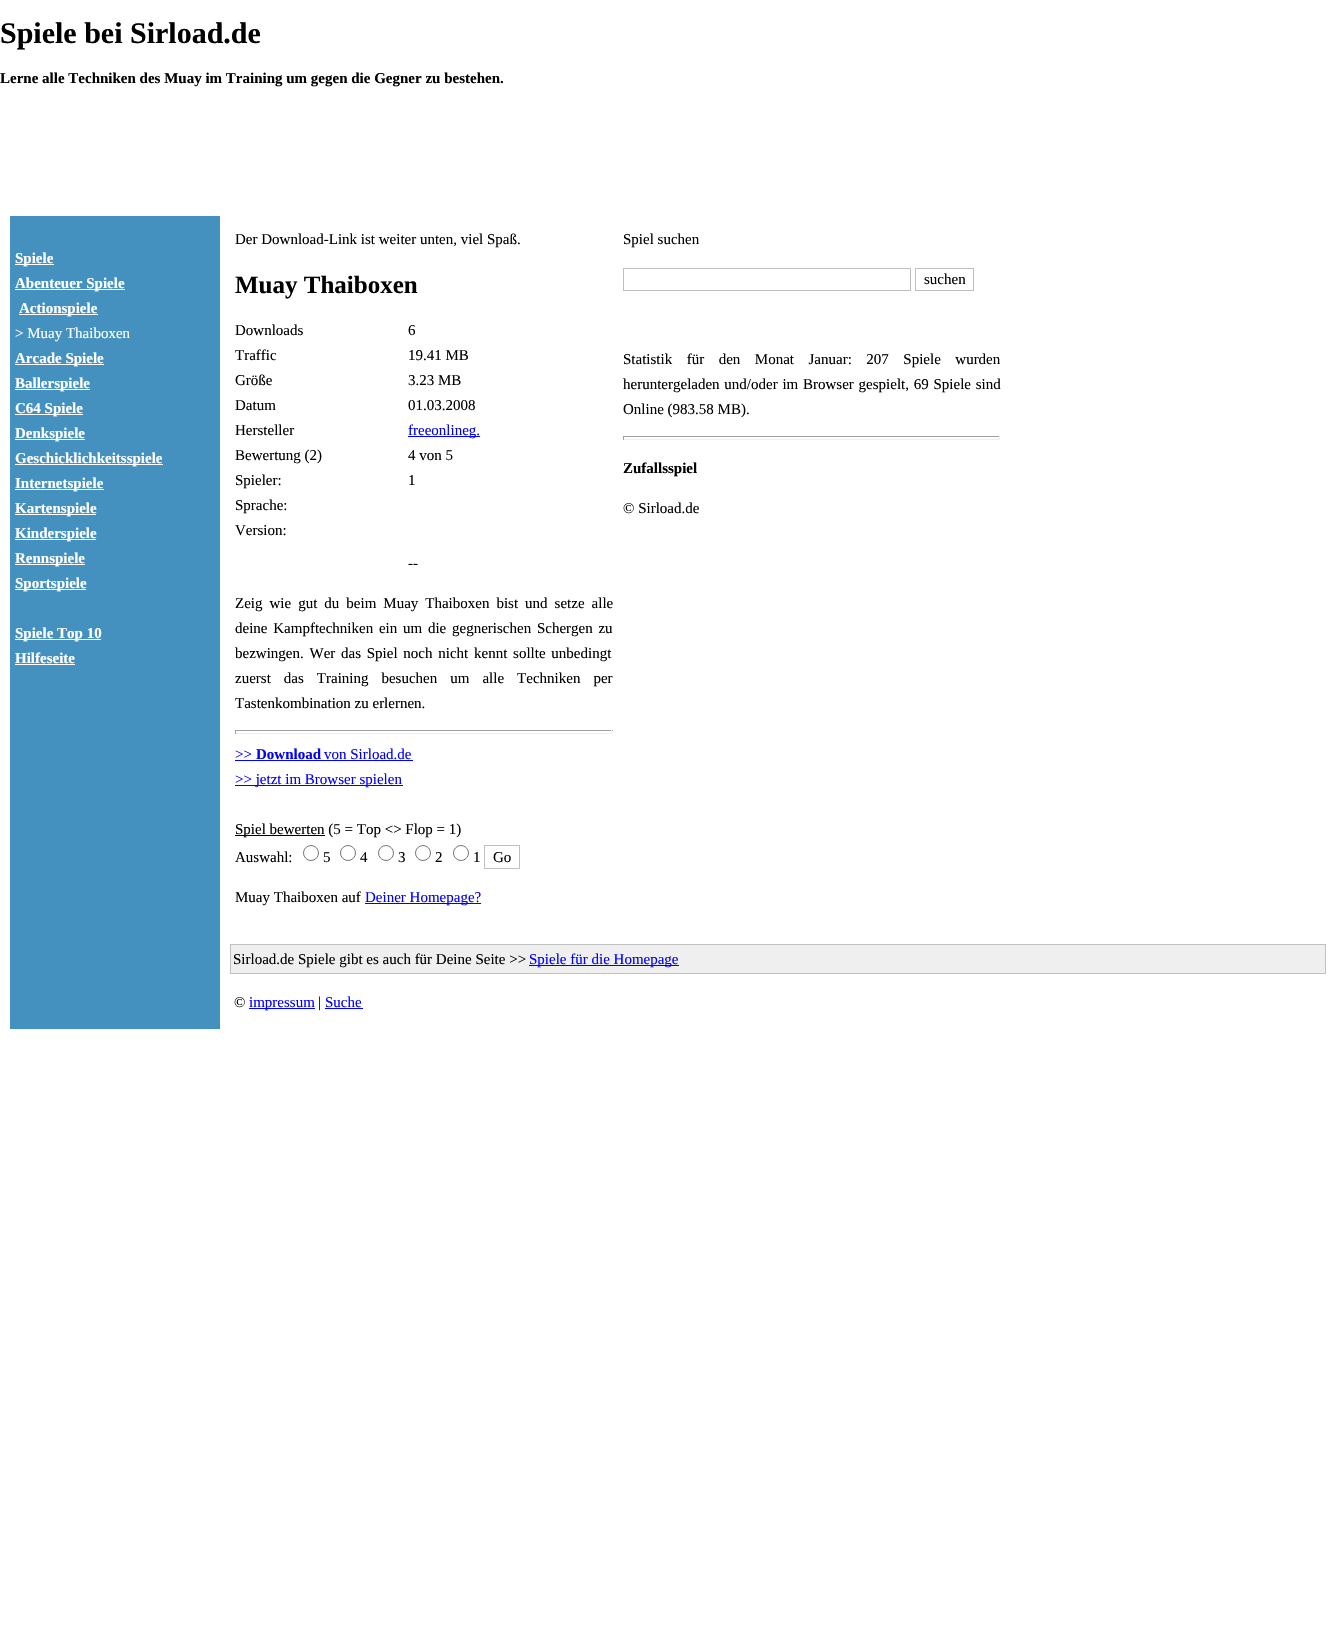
void draw(SkCanvas* canvas) {
  SkPaint paint;
  paint.setAntiAlias(true);
  auto face = [&](const char* family, int weight, float size, bool italic = false) {
    SkFontStyle style(weight, SkFontStyle::kNormal_Width,
      italic ? SkFontStyle::kItalic_Slant : SkFontStyle::kUpright_Slant);
    SkFont result(fontMgr->matchFamilyStyle(family, style), size);
    result.setSubpixel(true);
    return result;
  };
  auto writeSpaced = [&](const char* s, float x, float y, const SkFont& font, const SkPaint& ink, float letter, float word) {
    std::vector<SkGlyphID> glyphs(font.countText(s, strlen(s), SkTextEncoding::kUTF8));
    std::vector<float> xs(glyphs.size());
    font.textToGlyphs(s, strlen(s), SkTextEncoding::kUTF8, glyphs);
    font.getXPos(glyphs, xs, x);
    float extra = 0;
    for (size_t i = 0; i < glyphs.size(); i++) {
      xs[i] += extra;
      extra += letter + word * (glyphs[i] == font.unicharToGlyph(' '));
    }
    canvas->drawTextBlob(SkTextBlob::MakeFromPosHGlyphs(glyphs, xs, y, font), 0, 0, ink);
  };
  canvas->clear(0xffffffff);
  {
    const struct { float x, y, w, h; SkColor color; } items[] = {
      {10, 216, 210, 813, 0xff4491bf},
      {15, 264, 39, 1, 0xffffffff},
      {15, 289, 110, 1, 0xffffffff},
      {19, 314, 79, 1, 0xffffffff},
      {15, 364, 89, 1, 0xffffffff},
      {15, 389, 75, 1, 0xffffffff},
      {15, 414, 68, 1, 0xffffffff},
      {15, 439, 70, 1, 0xffffffff},
      {15, 464, 148, 1, 0xffffffff},
      {15, 489, 89, 1, 0xffffffff},
      {15, 514, 81, 1, 0xffffffff},
      {15, 539, 81, 1, 0xffffffff},
      {15, 564, 70, 1, 0xffffffff},
      {15, 589, 71, 1, 0xffffffff},
      {15, 639, 86, 1, 0xffffffff},
      {15, 664, 60, 1, 0xffffffff},
      {408, 436, 72, 1, 0xff0000ff},
      {235, 730, 378, 1, 0xff9f9f9f},
      {611, 730, 1, 4, 0xffeeeeee},
      {235, 733, 378, 1, 0xffeeeeee},
      {235, 730, 1, 4, 0xff9f9f9f},
      {235, 760, 178, 1, 0xff0000ff},
      {235, 785, 168, 1, 0xff0000ff},
      {235, 835, 90, 1, 0xff000000},
    };
    for (auto [x, y, w, h, color] : items) {
      paint.setColor(color);
      canvas->drawRect(SkRect::MakeXYWH(x, y, w, h), paint);
    }
  }
  paint.setStroke(true);
  paint.setStrokeWidth(1);
  paint.setColor(0xff767676);
  canvas->drawCircle(311, 853, 7.5f, paint);
  canvas->drawCircle(348, 853, 7.5f, paint);
  canvas->drawCircle(386, 853, 7.5f, paint);
  canvas->drawCircle(423, 853, 7.5f, paint);
  canvas->drawCircle(461, 853, 7.5f, paint);
  paint.setColor(0xffc0c0c0);
  canvas->drawRect(SkRect::MakeXYWH(484.5f, 845.5f, 35, 23), paint);
  paint.setStroke(false);
  paint.setColor(0xff0000ff);
  canvas->drawRect(SkRect::MakeXYWH(365, 903, 116, 1), paint);
  paint.setStroke(true);
  paint.setColor(0xffc0c0c0);
  canvas->drawRect(SkRect::MakeXYWH(623.5f, 268.5f, 287, 22), paint);
  canvas->drawRect(SkRect::MakeXYWH(915.5f, 268.5f, 58, 22), paint);
  paint.setStroke(false);
  {
    const struct { float x, y, w, h; SkColor color; } items[] = {
      {623, 436, 377, 1, 0xff9f9f9f},
      {999, 436, 1, 4, 0xffeeeeee},
      {623, 439, 377, 1, 0xffeeeeee},
      {623, 436, 1, 4, 0xff9f9f9f},
    };
    for (auto [x, y, w, h, color] : items) {
      paint.setColor(color);
      canvas->drawRect(SkRect::MakeXYWH(x, y, w, h), paint);
    }
  }
  paint.setColor(0xffefefef);
  canvas->drawRect(SkRect::MakeXYWH(230.5f, 944.5f, 1095, 29), paint);
  paint.setStroke(true);
  paint.setColor(0xffc0c0c0);
  canvas->drawRect(SkRect::MakeXYWH(230.5f, 944.5f, 1095, 29), paint);
  paint.setStroke(false);
  {
    const struct { float x, y, w, h; SkColor color; } items[] = {
      {529, 965, 150, 1, 0xff0000ff},
      {249, 1008, 66, 1, 0xff0000ff},
      {325, 1008, 38, 1, 0xff0000ff},
    };
    for (auto [x, y, w, h, color] : items) {
      paint.setColor(color);
      canvas->drawRect(SkRect::MakeXYWH(x, y, w, h), paint);
    }
  }
  auto f0 = face("Liberation Serif", 700, 30);
  paint.setColor(0xff000000);
  canvas->drawString("Spiele bei Sirload.de", 0, 43, f0, paint);
  auto f1 = face("Liberation Serif", 700, 15);
  canvas->drawString("Lerne alle Techniken des Muay im Training um gegen die Gegner zu bestehen.", 0, 83, f1, paint);
  paint.setColor(0xffffffff);
  {
    const struct { const char* s; float x, y; } items[] = {
      {"Spiele", 15, 263},
      {"Abenteuer Spiele", 15, 288},
      {"Actionspiele", 19, 313},
    };
    for (auto [s, x, y] : items) {
      canvas->drawString(s, x, y, f1, paint);
    }
  }
  auto f2 = face("Liberation Serif", 400, 15);
  canvas->drawString("> Muay Thaiboxen", 15, 338, f2, paint);
  {
    const struct { const char* s; float x, y; } items[] = {
      {"Arcade Spiele", 15, 363},
      {"Ballerspiele", 15, 388},
      {"C64 Spiele", 15, 413},
      {"Denkspiele", 15, 438},
      {"Geschicklichkeitsspiele", 15, 463},
      {"Internetspiele", 15, 488},
      {"Kartenspiele", 15, 513},
      {"Kinderspiele", 15, 538},
      {"Rennspiele", 15, 563},
      {"Sportspiele", 15, 588},
      {"Spiele Top 10", 15, 638},
      {"Hilfeseite", 15, 663},
    };
    for (auto [s, x, y] : items) {
      canvas->drawString(s, x, y, f1, paint);
    }
  }
  paint.setColor(0xff000000);
  canvas->drawString("Der Download-Link ist weiter unten, viel Spaß.", 235, 244, f2, paint);
  auto f3 = face("Liberation Serif", 700, 25);
  canvas->drawString("Muay Thaiboxen", 235, 293, f3, paint);
  {
    const struct { const char* s; float x, y; } items[] = {
      {"Downloads", 235, 335},
      {"Traffic", 235, 360},
      {"Größe", 235, 385},
      {"Datum", 235, 410},
      {"Hersteller", 235, 435},
      {"Bewertung (2)", 235, 460},
      {"Spieler:", 235, 485},
      {"Sprache:", 235, 510},
      {"Version:", 235, 535},
      {"6", 408, 335},
      {"19.41 MB", 408, 360},
      {"3.23 MB", 408, 385},
      {"01.03.2008", 408, 410},
    };
    for (auto [s, x, y] : items) {
      canvas->drawString(s, x, y, f2, paint);
    }
  }
  paint.setColor(0xff0000ff);
  canvas->drawString("freeonlineg.", 408, 435, f2, paint);
  paint.setColor(0xff000000);
  {
    const struct { const char* s; float x, y; } items[] = {
      {"4 von 5", 408, 460},
      {"1", 408, 485},
      {"--", 408, 568},
    };
    for (auto [s, x, y] : items) {
      canvas->drawString(s, x, y, f2, paint);
    }
  }
  writeSpaced("Zeig wie gut du beim Muay Thaiboxen bist und setze alle", 235, 608, f2, paint, 0, 3.25f);
  writeSpaced("deine Kampftechniken ein um die gegnerischen Schergen zu", 235, 633, f2, paint, 0, 2);
  writeSpaced("bezwingen. Wer das Spiel noch nicht kennt sollte unbedingt", 235, 658, f2, paint, 0, 2);
  writeSpaced("zuerst das Training besuchen um alle Techniken per", 235, 683, f2, paint, 0, 9.25f);
  canvas->drawString("Tastenkombination zu erlernen.", 235, 708, f2, paint);
  paint.setColor(0xff0000ff);
  canvas->drawString(">>", 235, 759, f2, paint);
  canvas->drawString("Download", 256, 759, f1, paint);
  canvas->drawString("von Sirload.de", 324, 759, f2, paint);
  canvas->drawString(">> jetzt im Browser spielen", 235, 784, f2, paint);
  paint.setColor(0xff000000);
  {
    const struct { const char* s; float x, y; } items[] = {
      {"Spiel bewerten (5 = Top <> Flop = 1)", 235, 834},
      {"Auswahl:", 235, 862},
      {"5", 323, 862},
      {"4", 360, 862},
      {"3", 398, 862},
      {"2", 435, 862},
      {"1", 473, 862},
      {"Go", 493, 862},
      {"Muay Thaiboxen auf", 235, 902},
    };
    for (auto [s, x, y] : items) {
      canvas->drawString(s, x, y, f2, paint);
    }
  }
  paint.setColor(0xff0000ff);
  canvas->drawString("Deiner Homepage?", 365, 902, f2, paint);
  paint.setColor(0xff000000);
  canvas->drawString("Spiel suchen", 623, 244, f2, paint);
  canvas->drawString("suchen", 924, 284, f2, paint);
  writeSpaced("Statistik für den Monat Januar: 207 Spiele wurden", 623, 364, f2, paint, 0, 10.75f);
  writeSpaced("heruntergeladen und/oder im Browser gespielt, 69 Spiele sind", 623, 389, f2, paint, 0, 1);
  canvas->drawString("Online (983.58 MB).", 623, 414, f2, paint);
  canvas->drawString("Zufallsspiel", 623, 473, f1, paint);
  canvas->drawString("© Sirload.de", 623, 513, f2, paint);
  canvas->drawString("Sirload.de Spiele gibt es auch für Deine Seite >>", 233, 964, f2, paint);
  paint.setColor(0xff0000ff);
  canvas->drawString("Spiele für die Homepage", 529, 964, f2, paint);
  paint.setColor(0xff000000);
  canvas->drawString("©", 234, 1007, f2, paint);
  paint.setColor(0xff0000ff);
  canvas->drawString("impressum", 249, 1007, f2, paint);
  paint.setColor(0xff000000);
  canvas->drawString("|", 318, 1007, f2, paint);
  paint.setColor(0xff0000ff);
  canvas->drawString("Suche", 325, 1007, f2, paint);
}
